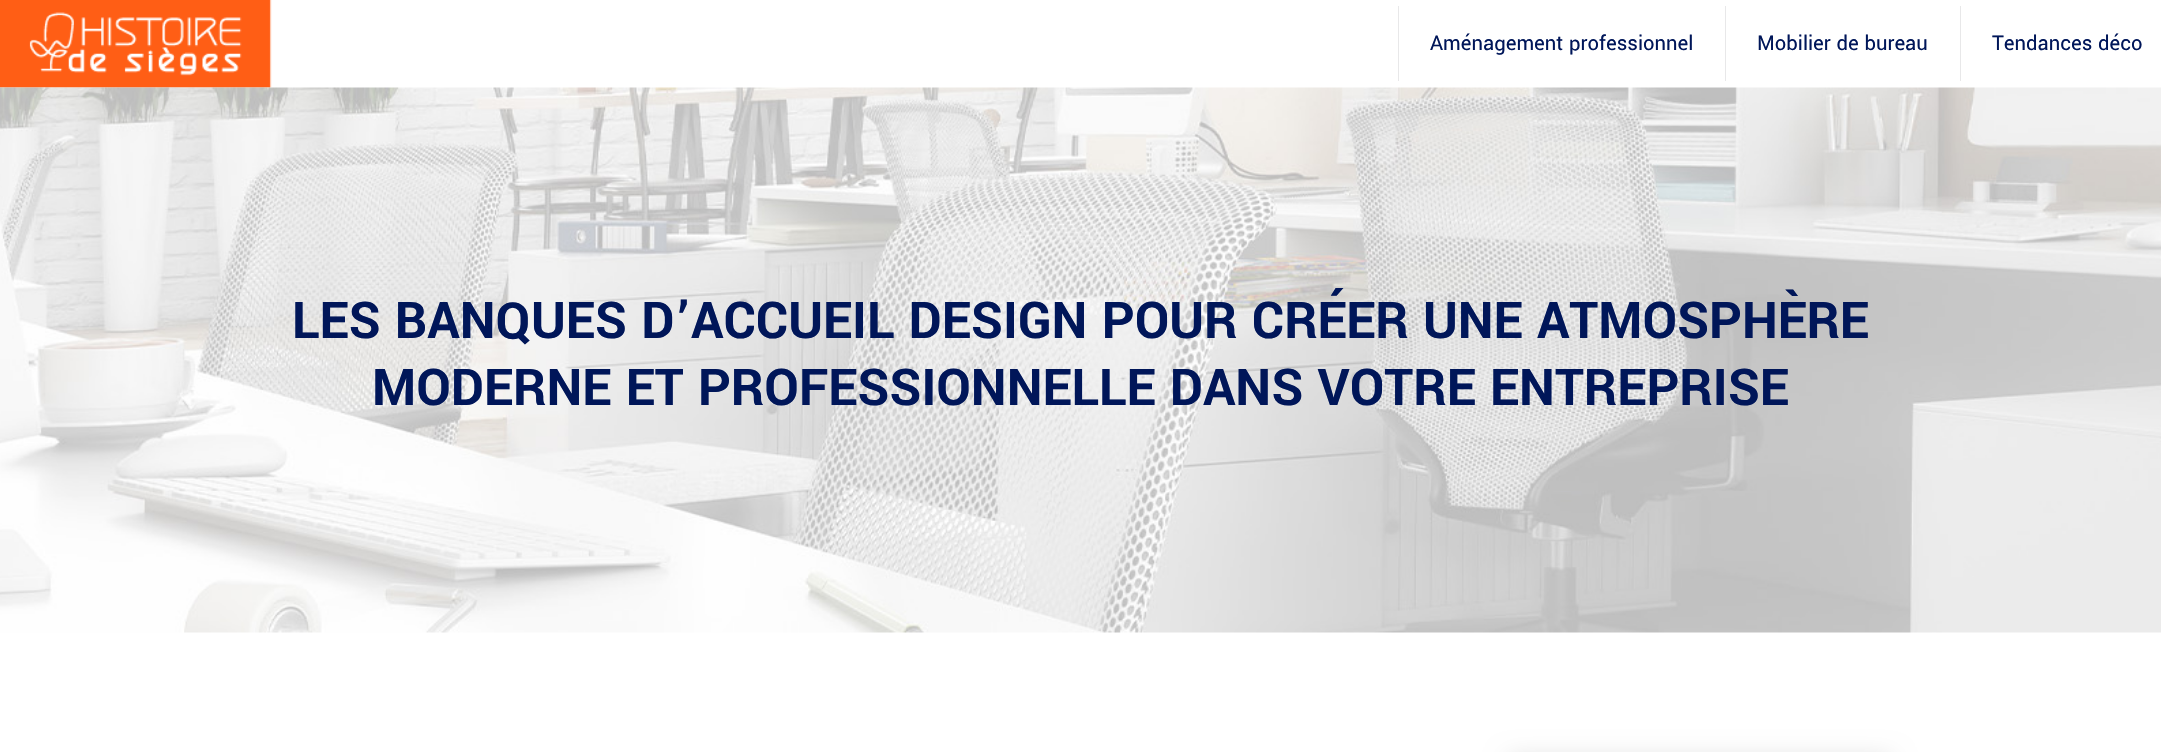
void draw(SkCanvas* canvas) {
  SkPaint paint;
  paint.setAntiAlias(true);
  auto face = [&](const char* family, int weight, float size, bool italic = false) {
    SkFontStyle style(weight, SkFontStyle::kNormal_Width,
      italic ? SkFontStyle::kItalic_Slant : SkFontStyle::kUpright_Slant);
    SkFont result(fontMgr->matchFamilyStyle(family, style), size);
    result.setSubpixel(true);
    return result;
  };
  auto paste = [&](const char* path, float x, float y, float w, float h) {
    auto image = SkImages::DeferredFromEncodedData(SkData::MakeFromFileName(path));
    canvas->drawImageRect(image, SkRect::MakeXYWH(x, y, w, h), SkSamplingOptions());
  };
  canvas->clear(0xffffffff);
  paste("img/1.png", 0, 0, 272, 88);
  {
    const struct { float x, y, w, h; SkColor color; } items[] = {
      {1398, 6, 1, 75, 0xffe8e8e9},
      {1725, 6, 1, 75, 0xffe8e8e9},
      {1960, 6, 1, 75, 0xffe8e8e9},
    };
    for (auto [x, y, w, h, color] : items) {
      paint.setColor(color);
      canvas->drawRect(SkRect::MakeXYWH(x, y, w, h), paint);
    }
  }
  paste("img/2.png", 0, 87, 2161, 546);
  paint.setColor(0xffdddddd);
  paint.setMaskFilter(SkMaskFilter::MakeBlur(kNormal_SkBlurStyle, 12.5f));
  canvas->drawRect(SkRect::MakeXYWH(1509, 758, 382, 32), paint);
  paint.setMaskFilter(nullptr);
  auto f0 = face("Yantramanav", 400, 22.5f);
  paint.setColor(0xff001659);
  {
    const struct { const char* s; float x, y; } items[] = {
      {"Aménagement professionnel", 1430, 50},
      {"Mobilier de bureau", 1757, 50},
      {"Tendances déco", 1992, 50},
    };
    for (auto [s, x, y] : items) {
      canvas->drawString(s, x, y, f0, paint);
    }
  }
  auto f1 = face("Yantramanav", 700, 56.25f);
  canvas->drawString("LES BANQUES D’ACCUEIL DESIGN POUR CRÉER UNE ATMOSPHÈRE", 292, 338, f1, paint);
  canvas->drawString("MODERNE ET PROFESSIONNELLE DANS VOTRE ENTREPRISE", 372, 405, f1, paint);
}
